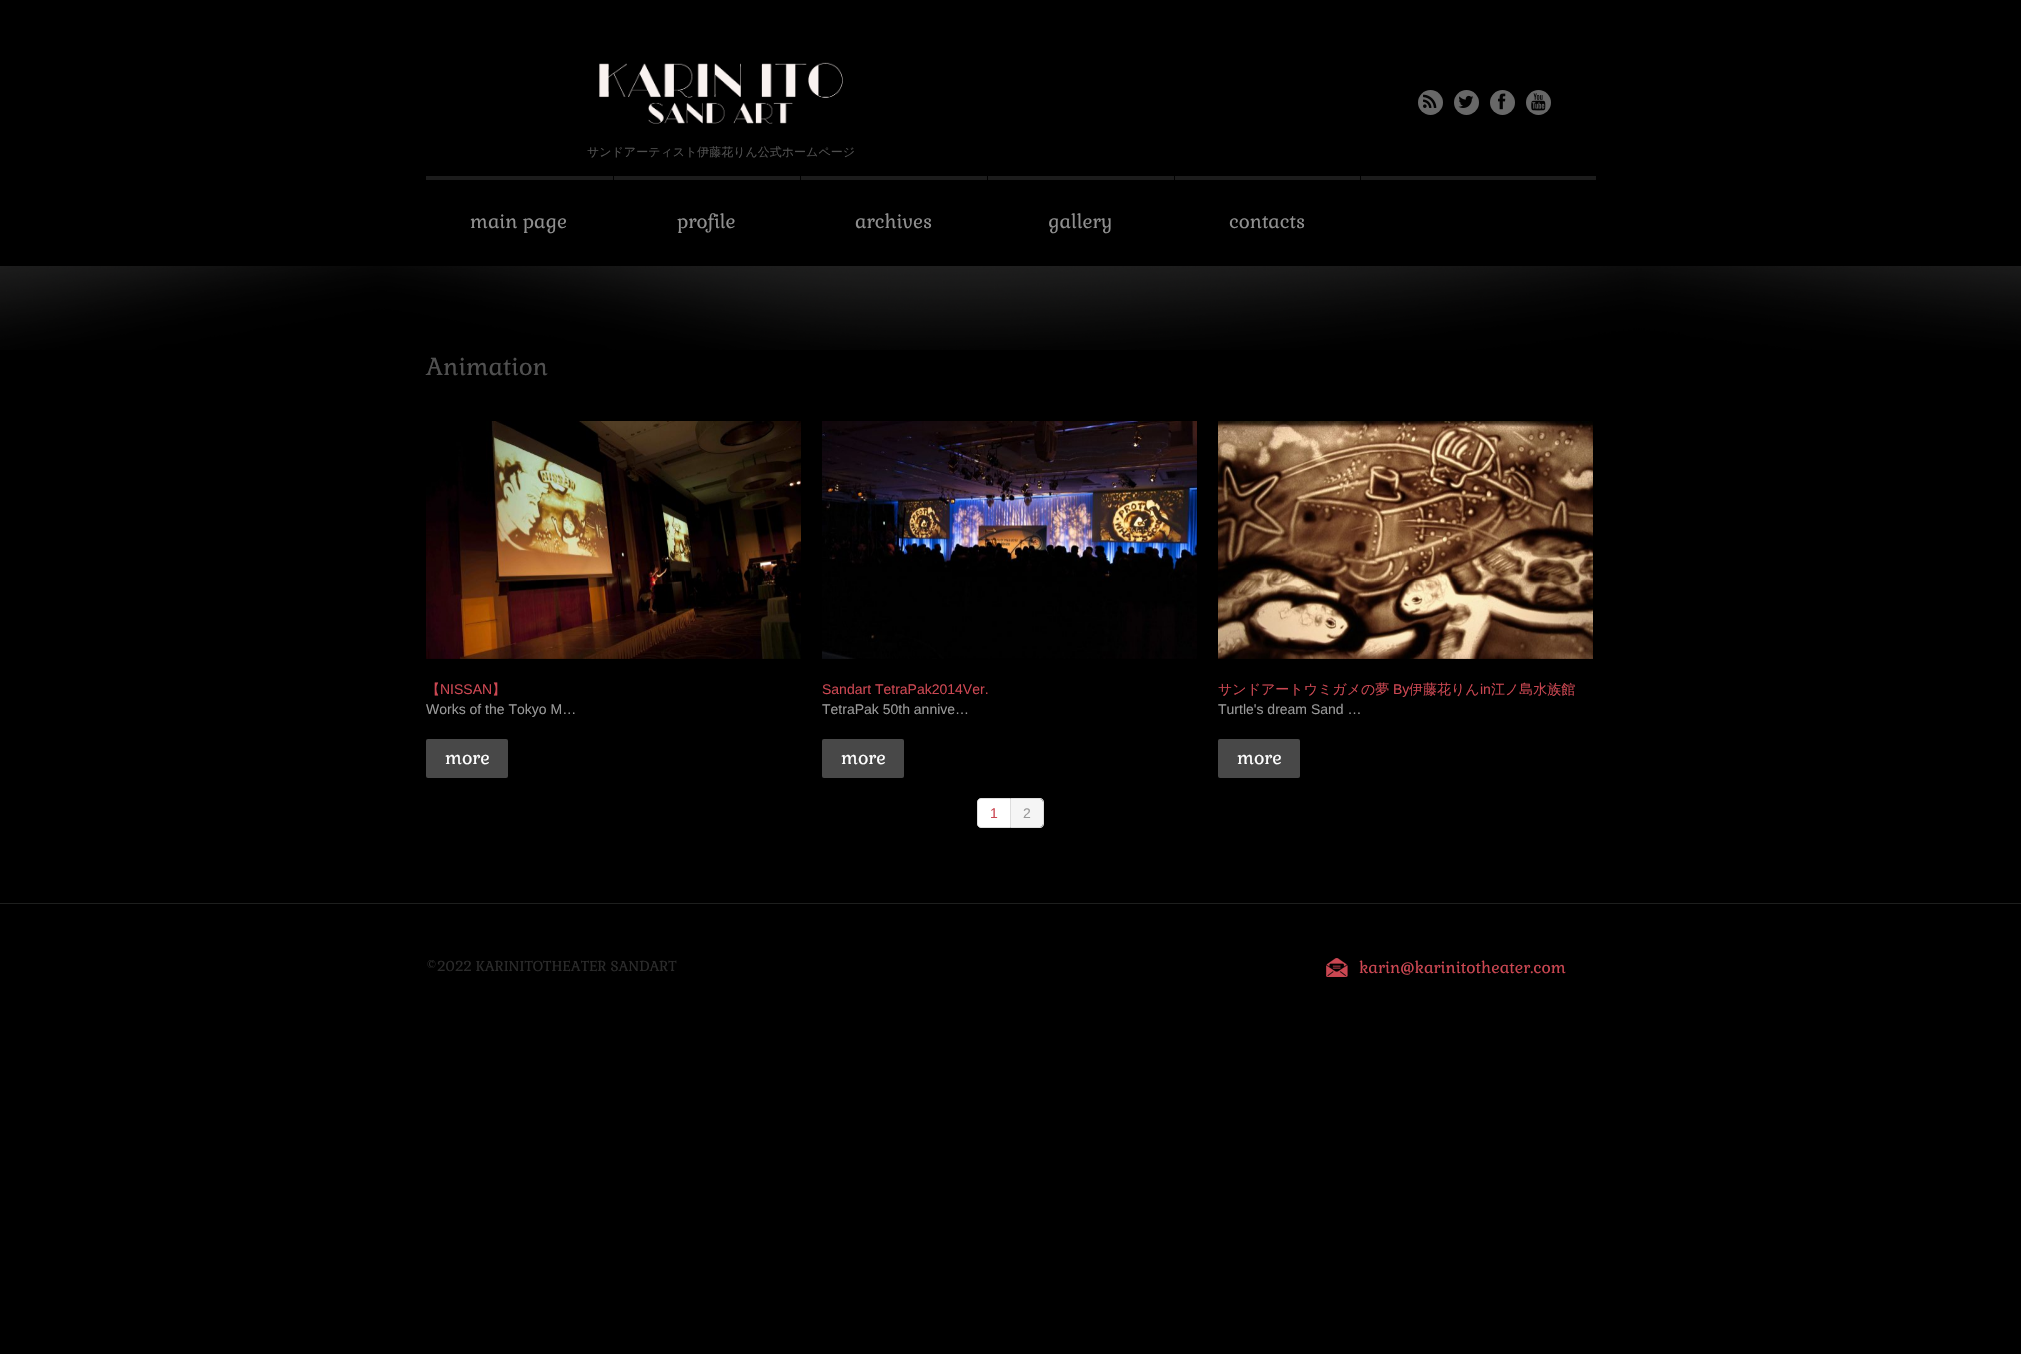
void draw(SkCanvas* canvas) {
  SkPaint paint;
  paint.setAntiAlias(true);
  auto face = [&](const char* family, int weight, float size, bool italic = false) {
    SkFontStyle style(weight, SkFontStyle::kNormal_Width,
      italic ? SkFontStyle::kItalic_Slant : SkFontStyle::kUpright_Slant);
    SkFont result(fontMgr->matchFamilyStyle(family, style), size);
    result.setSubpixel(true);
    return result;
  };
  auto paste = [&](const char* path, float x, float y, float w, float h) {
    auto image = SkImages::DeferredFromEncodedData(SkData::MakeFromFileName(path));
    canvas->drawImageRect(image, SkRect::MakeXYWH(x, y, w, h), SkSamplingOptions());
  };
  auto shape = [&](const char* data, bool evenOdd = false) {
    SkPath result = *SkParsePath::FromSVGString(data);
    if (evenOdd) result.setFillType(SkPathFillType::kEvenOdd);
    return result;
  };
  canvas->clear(0xff000000);
  paint.setColor(0xff686868);
  canvas->drawCircle(1430.5f, 102.5f, 12.5f, paint);
  paste("img/1.png", 1423, 94, 14, 14);
  canvas->drawCircle(1466.5f, 102.5f, 12.5f, paint);
  paste("img/2.png", 1458, 95, 16, 13);
  canvas->drawCircle(1502.5f, 102.5f, 12.5f, paint);
  paste("img/3.png", 1498, 93, 8, 17);
  canvas->drawCircle(1538.5f, 102.5f, 12.5f, paint);
  paste("img/4.png", 1531, 93, 15, 18);
  paste("img/5.png", 599, 62, 244, 62);
  {
    const struct { float x, y, w, h; SkColor color; } items[] = {
      {426, 176, 1170, 4, 0xff1c1c1c},
      {613, 176, 1, 4, 0xff000000},
      {800, 176, 1, 4, 0xff000000},
      {987, 176, 1, 4, 0xff000000},
      {1360, 176, 1, 4, 0xff000000},
      {1174, 176, 1, 4, 0xff000000},
    };
    for (auto [x, y, w, h, color] : items) {
      paint.setColor(color);
      canvas->drawRect(SkRect::MakeXYWH(x, y, w, h), paint);
    }
  }
  paste("img/6.png", 0, 266, 2021, 84);
  paste("img/7.png", 426, 421, 375, 238);
  paint.setColor(0xff484848);
  canvas->drawRoundRect(SkRect::MakeXYWH(426, 739, 82, 39), 2, 2, paint);
  paste("img/8.png", 822, 421, 375, 238);
  canvas->drawRoundRect(SkRect::MakeXYWH(822, 739, 82, 39), 2, 2, paint);
  paste("img/9.png", 1218, 421, 375, 238);
  canvas->drawRoundRect(SkRect::MakeXYWH(1218, 739, 82, 39), 2, 2, paint);
  paint.setColor(0xffffffff);
  canvas->drawPath(shape("M981 798.5H1010.5V827.5H981C979 827.5 977.5 826 977.5 824V802C977.5 800 979 798.5 981 798.5Z"), paint);
  paint.setStroke(true);
  paint.setStrokeWidth(1);
  paint.setColor(0xffdddddd);
  canvas->drawPath(shape("M981 798.5H1010.5V827.5H981C979 827.5 977.5 826 977.5 824V802C977.5 800 979 798.5 981 798.5Z"), paint);
  paint.setStroke(false);
  paint.setColor(0xfff5f5f5);
  canvas->drawPath(shape("M1011 799H1040C1041.5 799 1043 800.5 1043 802V824C1043 825.5 1041.5 827 1040 827H1011Z"), paint);
  paint.setColor(0xffdddddd);
  canvas->drawPath(shape("M1011 798H1040C1042 798 1044 800 1044 802V824C1044 826 1042 828 1040 828H1011ZM1011 799H1040C1041.5 799 1043 800.5 1043 802V824C1043 825.5 1041.5 827 1040 827H1011Z", true), paint);
  paint.setColor(0xff1e1f1e);
  canvas->drawRect(SkRect::MakeXYWH(0, 903, 2021, 1), paint);
  paste("img/10.png", 1326, 958, 22, 19);
  auto f0 = face("WenQuanYi Zen Hei", 500, 12);
  paint.setColor(0xff505050);
  canvas->drawString("サンドアーティスト伊藤花りん公式ホームページ", 587, 156, f0, paint);
  auto f1 = face("Gabriela", 400, 19);
  paint.setColor(0xff8f8f8f);
  {
    const struct { const char* s; float x, y; } items[] = {
      {"main page", 470, 228},
      {"profile", 677, 228},
      {"archives", 855, 228},
      {"gallery", 1048, 228},
      {"contacts", 1229, 228},
    };
    for (auto [s, x, y] : items) {
      canvas->drawString(s, x, y, f1, paint);
    }
  }
  auto f2 = face("Gabriela", 400, 24);
  paint.setColor(0xff505050);
  canvas->drawString("Animation", 426, 375, f2, paint);
  auto f3 = face("WenQuanYi Zen Hei", 500, 14);
  paint.setColor(0xffcb4752);
  canvas->drawString("【", 426, 694, f3, paint);
  auto f4 = face("Liberation Sans", 400, 14);
  canvas->drawString("NISSAN", 440, 694, f4, paint);
  canvas->drawString("】", 492, 694, f3, paint);
  paint.setColor(0xff999999);
  canvas->drawString("Works of the Tokyo M…", 426, 714, f4, paint);
  auto f5 = face("Gabriela", 400, 18);
  paint.setColor(0xffffffff);
  canvas->drawString("more", 445, 764, f5, paint);
  paint.setColor(0xffcb4752);
  canvas->drawString("Sandart TetraPak2014Ver.", 822, 694, f4, paint);
  paint.setColor(0xff999999);
  canvas->drawString("TetraPak 50th annive…", 822, 714, f4, paint);
  paint.setColor(0xffffffff);
  canvas->drawString("more", 841, 764, f5, paint);
  paint.setColor(0xffcb4752);
  canvas->drawString("サンドアートウミガメの夢", 1218, 694, f3, paint);
  canvas->drawString("By", 1393, 694, f4, paint);
  canvas->drawString("伊藤花りん", 1409, 694, f3, paint);
  canvas->drawString("in", 1480, 694, f4, paint);
  canvas->drawString("江ノ島水族館", 1491, 694, f3, paint);
  paint.setColor(0xff999999);
  canvas->drawString("Turtle's dream Sand …", 1218, 714, f4, paint);
  paint.setColor(0xffffffff);
  canvas->drawString("more", 1237, 764, f5, paint);
  paint.setColor(0xffcb4752);
  canvas->drawString("1", 990, 818, f4, paint);
  paint.setColor(0xff999999);
  canvas->drawString("2", 1023, 818, f4, paint);
  auto f6 = face("Gabriela", 400, 14);
  paint.setColor(0xff2b2b2b);
  canvas->drawString("©2022 KARINITOTHEATER SANDART", 426, 971, f6, paint);
  auto f7 = face("Gabriela", 400, 16);
  paint.setColor(0xffcb4752);
  canvas->drawString("karin@karinitotheater.com", 1359, 973, f7, paint);
}
